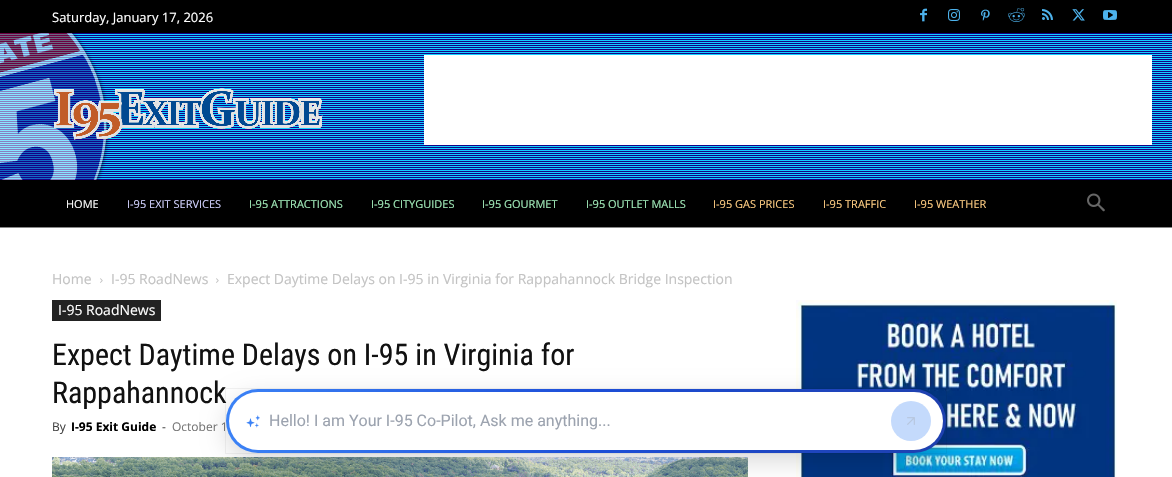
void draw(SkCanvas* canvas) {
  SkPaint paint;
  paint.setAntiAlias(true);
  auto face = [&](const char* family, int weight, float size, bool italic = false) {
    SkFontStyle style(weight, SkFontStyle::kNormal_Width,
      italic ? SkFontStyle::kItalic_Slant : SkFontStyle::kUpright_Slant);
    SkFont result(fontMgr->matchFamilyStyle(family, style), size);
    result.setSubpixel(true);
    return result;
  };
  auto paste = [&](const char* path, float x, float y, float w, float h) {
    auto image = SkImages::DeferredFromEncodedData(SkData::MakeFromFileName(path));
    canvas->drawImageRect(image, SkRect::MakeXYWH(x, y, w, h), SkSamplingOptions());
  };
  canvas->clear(0xffffffff);
  paint.setColor(0xff000000);
  canvas->drawRect(SkRect::MakeXYWH(0, 0, 1172, 33), paint);
  paste("img/1.png", 920, 8, 7, 14);
  paste("img/2.png", 948, 9, 12, 12);
  paste("img/3.png", 981, 9, 9, 12);
  paste("img/4.png", 1008, 8, 17, 14);
  paste("img/5.png", 1042, 9, 11, 11);
  paste("img/6.png", 1072, 9, 13, 12);
  paste("img/7.png", 1103, 10, 14, 10);
  paste("img/8.png", 0, 33, 1172, 147);
  paste("img/9.png", 53, 88, 270, 52);
  {
    const struct { float x, y, w, h; SkColor color; } items[] = {
      {424, 55, 728, 90, 0xffffffff},
      {0, 180, 1172, 47, 0xff000000},
      {0, 227, 1172, 1, 0xff888888},
    };
    for (auto [x, y, w, h, color] : items) {
      paint.setColor(color);
      canvas->drawRect(SkRect::MakeXYWH(x, y, w, h), paint);
    }
  }
  paste("img/10.png", 1087, 193, 18, 19);
  paste("img/11.png", 100, 278, 3, 5);
  paste("img/11.png", 216, 278, 3, 5);
  paint.setColor(0xff222222);
  canvas->drawRect(SkRect::MakeXYWH(52, 300, 109, 21), paint);
  paste("img/12.png", 52, 457, 696, 20);
  paste("img/15.png", 796, 300, 321, 177);
  auto f0 = face("Open Sans", 400, 13);
  paint.setColor(0xffffffff);
  canvas->drawString("Saturday, January 17, 2026", 52, 22, f0, paint);
  auto f1 = face("Open Sans", 400, 11);
  canvas->drawString("HOME", 66, 208, f1, paint);
  paint.setColor(0xffd2d2ff);
  canvas->drawString("I-95 EXIT SERVICES", 127, 208, f1, paint);
  paint.setColor(0xff9fe8b7);
  {
    const struct { const char* s; float x, y; } items[] = {
      {"I-95 ATTRACTIONS", 249, 208},
      {"I-95 CITYGUIDES", 371, 208},
      {"I-95 GOURMET", 482, 208},
      {"I-95 OUTLET MALLS", 586, 208},
    };
    for (auto [s, x, y] : items) {
      canvas->drawString(s, x, y, f1, paint);
    }
  }
  paint.setColor(0xffffcd82);
  {
    const struct { const char* s; float x, y; } items[] = {
      {"I-95 GAS PRICES", 713, 208},
      {"I-95 TRAFFIC", 823, 208},
      {"I-95 WEATHER", 914, 208},
    };
    for (auto [s, x, y] : items) {
      canvas->drawString(s, x, y, f1, paint);
    }
  }
  auto f2 = face("Open Sans", 400, 14);
  paint.setColor(0xffc3c3c3);
  {
    const struct { const char* s; float x, y; } items[] = {
      {"Home", 52, 284},
      {"I-95 RoadNews", 111, 284},
      {"Expect Daytime Delays on I-95 in Virginia for Rappahannock Bridge Inspection", 227, 284},
    };
    for (auto [s, x, y] : items) {
      canvas->drawString(s, x, y, f2, paint);
    }
  }
  paint.setColor(0xffffffff);
  canvas->drawString("I-95 RoadNews", 58, 315, f2, paint);
  auto f3 = face("Roboto Condensed", 400, 30);
  paint.setColor(0xff111111);
  canvas->drawString("Expect Daytime Delays on I-95 in Virginia for", 52, 365, f3, paint);
  canvas->drawString("Rappahannock", 52, 403, f3, paint);
  auto f4 = face("Open Sans", 400, 12);
  paint.setColor(0xff444444);
  canvas->drawString("By", 52, 431, f4, paint);
  auto f5 = face("Open Sans", 700, 12);
  paint.setColor(0xff000000);
  canvas->drawString("I-95 Exit Guide", 71, 431, f5, paint);
  paint.setColor(0xff444444);
  canvas->drawString("-", 162, 431, f4, paint);
  paint.setColor(0xff767676);
  canvas->drawString("October 1", 172, 431, f4, paint);
  paint.setStroke(true);
  paint.setStrokeWidth(1);
  paint.setColor(0x0d000000);
  canvas->drawRect(SkRect::MakeXYWH(225.5f, 388.5f, 721, 65), paint);
  paint.setStroke(false);
  paint.setColor(0x26000000);
  paint.setMaskFilter(SkMaskFilter::MakeBlur(kNormal_SkBlurStyle, 12.5f));
  canvas->drawRoundRect(SkRect::MakeXYWH(226, 397, 720, 64), 32, 32, paint);
  paint.setMaskFilter(nullptr);
  {
    const SkColor colors[] = {0xff3b82f6, 0xff1d4ed8, 0xff1e40af};
    const float stops[] = {0, 0.5f, 1};
    const SkPoint ends[] = {{226, 421}, {946, 421}};
    paint.setShader(SkGradientShader::MakeLinear(ends, colors, stops, 3, SkTileMode::kClamp));
    paint.setAlpha(255);
  }
  canvas->drawRoundRect(SkRect::MakeXYWH(226, 389, 720, 64), 32, 32, paint);
  paint.setShader(nullptr);
  paint.setColor(0xffffffff);
  canvas->drawRoundRect(SkRect::MakeXYWH(229, 392, 714, 58), 29, 29, paint);
  paste("img/13.png", 246, 415, 14, 13);
  auto f6 = face("Roboto", 400, 16);
  paint.setColor(0xff9ca3af);
  canvas->drawString("Hello! I am Your I-95 Co-Pilot, Ask me anything...", 269, 426, f6, paint);
  paint.setColor(0xffc4dafc);
  canvas->drawCircle(911, 421, 20, paint);
  paste("img/14.png", 907, 417, 8, 8);
}
